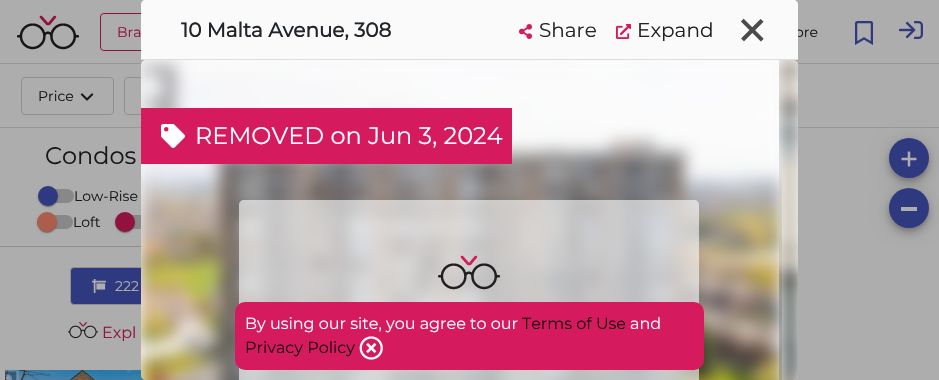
void draw(SkCanvas* canvas) {
  SkPaint paint;
  paint.setAntiAlias(true);
  auto face = [&](const char* family, int weight, float size, bool italic = false) {
    SkFontStyle style(weight, SkFontStyle::kNormal_Width,
      italic ? SkFontStyle::kItalic_Slant : SkFontStyle::kUpright_Slant);
    SkFont result(fontMgr->matchFamilyStyle(family, style), size);
    result.setSubpixel(true);
    return result;
  };
  auto paste = [&](const char* path, float x, float y, float w, float h) {
    auto image = SkImages::DeferredFromEncodedData(SkData::MakeFromFileName(path));
    canvas->drawImageRect(image, SkRect::MakeXYWH(x, y, w, h), SkSamplingOptions());
  };
  auto shape = [&](const char* data, bool evenOdd = false) {
    SkPath result = *SkParsePath::FromSVGString(data);
    if (evenOdd) result.setFillType(SkPathFillType::kEvenOdd);
    return result;
  };
  canvas->clear(0xffadadad);
  paint.setColor(0xff989898);
  canvas->drawRect(SkRect::MakeXYWH(0, 127, 939, 1), paint);
  paint.setStroke(true);
  paint.setStrokeWidth(1);
  paint.setColor(0xff8f8f8f);
  canvas->drawRoundRect(SkRect::MakeXYWH(21.5f, 77.5f, 92, 37), 3.5f, 3.5f, paint);
  paste("img/1.png", 80, 93, 14, 8);
  canvas->drawRoundRect(SkRect::MakeXYWH(124.5f, 77.5f, 85, 37), 3.5f, 3.5f, paint);
  paint.setStroke(false);
  canvas->drawRect(SkRect::MakeXYWH(0, 246, 141, 1), paint);
  paint.setColor(0xff898888);
  canvas->drawRoundRect(SkRect::MakeXYWH(38, 189, 36, 14), 7, 7, paint);
  paint.setColor(0x1f000000);
  paint.setMaskFilter(SkMaskFilter::MakeBlur(kNormal_SkBlurStyle, 1.5f));
  canvas->drawRoundRect(SkRect::MakeXYWH(38, 187, 20, 20), 10, 10, paint);
  paint.setMaskFilter(nullptr);
  paint.setColor(0x24000000);
  paint.setMaskFilter(SkMaskFilter::MakeBlur(kNormal_SkBlurStyle, 0.5f));
  canvas->drawRoundRect(SkRect::MakeXYWH(38, 187, 20, 20), 10, 10, paint);
  paint.setMaskFilter(nullptr);
  paint.setColor(0x33000000);
  paint.setMaskFilter(SkMaskFilter::MakeBlur(kNormal_SkBlurStyle, 0.5f));
  canvas->drawRoundRect(SkRect::MakeXYWH(39, 189, 18, 18), 9, 9, paint);
  paint.setMaskFilter(nullptr);
  paint.setColor(0xff2e3980);
  canvas->drawCircle(48, 196, 10, paint);
  paint.setColor(0xff898888);
  canvas->drawRoundRect(SkRect::MakeXYWH(37, 215, 36, 14), 7, 7, paint);
  paint.setColor(0x1f000000);
  paint.setMaskFilter(SkMaskFilter::MakeBlur(kNormal_SkBlurStyle, 1.5f));
  canvas->drawRoundRect(SkRect::MakeXYWH(37, 213, 20, 20), 10, 10, paint);
  paint.setMaskFilter(nullptr);
  paint.setColor(0x24000000);
  paint.setMaskFilter(SkMaskFilter::MakeBlur(kNormal_SkBlurStyle, 0.5f));
  canvas->drawRoundRect(SkRect::MakeXYWH(37, 213, 20, 20), 10, 10, paint);
  paint.setMaskFilter(nullptr);
  paint.setColor(0x33000000);
  paint.setMaskFilter(SkMaskFilter::MakeBlur(kNormal_SkBlurStyle, 0.5f));
  canvas->drawRoundRect(SkRect::MakeXYWH(38, 215, 18, 18), 9, 9, paint);
  paint.setMaskFilter(nullptr);
  paint.setColor(0xffad5d4c);
  canvas->drawCircle(47, 222, 10, paint);
  paint.setColor(0xff898888);
  canvas->drawRoundRect(SkRect::MakeXYWH(115, 215, 36, 14), 7, 7, paint);
  paint.setColor(0x1f000000);
  paint.setMaskFilter(SkMaskFilter::MakeBlur(kNormal_SkBlurStyle, 1.5f));
  canvas->drawRoundRect(SkRect::MakeXYWH(115, 213, 20, 20), 10, 10, paint);
  paint.setMaskFilter(nullptr);
  paint.setColor(0x24000000);
  paint.setMaskFilter(SkMaskFilter::MakeBlur(kNormal_SkBlurStyle, 0.5f));
  canvas->drawRoundRect(SkRect::MakeXYWH(115, 213, 20, 20), 10, 10, paint);
  paint.setMaskFilter(nullptr);
  paint.setColor(0x33000000);
  paint.setMaskFilter(SkMaskFilter::MakeBlur(kNormal_SkBlurStyle, 0.5f));
  canvas->drawRoundRect(SkRect::MakeXYWH(116, 215, 18, 18), 9, 9, paint);
  paint.setMaskFilter(nullptr);
  paint.setColor(0xff91123f);
  canvas->drawCircle(125, 222, 10, paint);
  paint.setColor(0xff2e3980);
  canvas->drawRoundRect(SkRect::MakeXYWH(70.5f, 267.5f, 143, 37), 3.5f, 3.5f, paint);
  paint.setStroke(true);
  paint.setColor(0xff8f8f8f);
  canvas->drawRoundRect(SkRect::MakeXYWH(70.5f, 267.5f, 143, 37), 3.5f, 3.5f, paint);
  paste("img/2.png", 92, 279, 14, 14);
  paste("img/3.png", 68, 322, 30, 17);
  paste("img/4.png", 5, 370, 141, 10);
  paint.setStroke(false);
  paint.setColor(0x1f000000);
  paint.setMaskFilter(SkMaskFilter::MakeBlur(kNormal_SkBlurStyle, 9));
  canvas->drawRoundRect(SkRect::MakeXYWH(889, 139, 40, 40), 20, 20, paint);
  paint.setMaskFilter(nullptr);
  paint.setColor(0x24000000);
  paint.setMaskFilter(SkMaskFilter::MakeBlur(kNormal_SkBlurStyle, 5));
  canvas->drawRoundRect(SkRect::MakeXYWH(889, 144, 40, 40), 20, 20, paint);
  paint.setMaskFilter(nullptr);
  paint.setColor(0x33000000);
  paint.setMaskFilter(SkMaskFilter::MakeBlur(kNormal_SkBlurStyle, 2.5f));
  canvas->drawRoundRect(SkRect::MakeXYWH(890, 142, 38, 38), 19, 19, paint);
  paint.setMaskFilter(nullptr);
  paint.setColor(0xff2e3980);
  canvas->drawCircle(909, 158, 20, paint);
  paste("img/5.png", 901, 151, 16, 16);
  paint.setColor(0x1f000000);
  paint.setMaskFilter(SkMaskFilter::MakeBlur(kNormal_SkBlurStyle, 9));
  canvas->drawRoundRect(SkRect::MakeXYWH(889, 189, 40, 40), 20, 20, paint);
  paint.setMaskFilter(nullptr);
  paint.setColor(0x24000000);
  paint.setMaskFilter(SkMaskFilter::MakeBlur(kNormal_SkBlurStyle, 5));
  canvas->drawRoundRect(SkRect::MakeXYWH(889, 194, 40, 40), 20, 20, paint);
  paint.setMaskFilter(nullptr);
  paint.setColor(0x33000000);
  paint.setMaskFilter(SkMaskFilter::MakeBlur(kNormal_SkBlurStyle, 2.5f));
  canvas->drawRoundRect(SkRect::MakeXYWH(890, 192, 38, 38), 19, 19, paint);
  paint.setMaskFilter(nullptr);
  paint.setColor(0xff2e3980);
  canvas->drawCircle(909, 208, 20, paint);
  paint.setColor(0xffadadad);
  canvas->drawRect(SkRect::MakeXYWH(901, 207, 16, 4), paint);
  paint.setColor(0xff989898);
  canvas->drawRect(SkRect::MakeXYWH(0, 63, 939, 1), paint);
  paint.setColor(0xfffafafa);
  canvas->drawRoundRect(SkRect::MakeXYWH(141, 60, 657, 320), 5, 5, paint);
  paste("img/8.png", 141, 60, 641, 320);
  paste("img/9.png", 779, 60, 19, 320);
  paint.setColor(0xffd51b5d);
  canvas->drawRect(SkRect::MakeXYWH(141, 108, 371, 56), paint);
  paste("img/10.png", 161, 124, 24, 24);
  paint.setColor(0x99ffffff);
  canvas->drawPath(shape("M244 200H694C697 200 699 202 699 205V380H239V205C239 202 241 200 244 200Z"), paint);
  paste("img/11.png", 438, 255, 62, 35);
  paste("img/12.png", 17, 15, 62, 35);
  paint.setStroke(true);
  paint.setColor(0xff91123f);
  canvas->drawRoundRect(SkRect::MakeXYWH(100.5f, 13.5f, 133, 37), 3.5f, 3.5f, paint);
  paste("img/13.png", 855, 21, 18, 24);
  paste("img/14.png", 899, 21, 24, 18);
  paint.setStroke(false);
  paint.setColor(0xffd51b5d);
  canvas->drawRoundRect(SkRect::MakeXYWH(235, 302, 469, 68), 10, 10, paint);
  paste("img/15.png", 359, 336, 24, 24);
  auto f0 = face("Montserrat", 100, 14);
  paint.setColor(0xff161616);
  canvas->drawString("Price", 38, 101, f0, paint);
  auto f1 = face("Montserrat", 100, 24);
  paint.setColor(0xff16191c);
  canvas->drawString("Condos", 45, 164, f1, paint);
  canvas->drawString("Low-Rise", 74, 201, f0, paint);
  canvas->drawString("Loft", 73, 227, f0, paint);
  paint.setColor(0xffadadad);
  canvas->drawString("222", 115, 291, f0, paint);
  auto f2 = face("Montserrat", 100, 16);
  paint.setColor(0xff91123f);
  canvas->drawString("Expl", 102, 338, f2, paint);
  paint.setColor(0xffffffff);
  canvas->drawString("REMOVED on Jun 3, 2024", 195, 144, f1, paint);
  paint.setColor(0xff91123f);
  canvas->drawString("Bra", 117, 37, f0, paint);
  paint.setColor(0xff161616);
  canvas->drawString("ore", 795, 37, f0, paint);
  paint.setColor(0xfffafafa);
  canvas->drawPath(shape("M145 0H794C796 0 798 2 798 4V60H141V4C141 2 143 0 145 0Z"), paint);
  auto f3 = face("Montserrat", 100, 65);
  paint.setColor(0xff4a4b4d);
  canvas->save();
  canvas->rotate(45, 723, 33);
  canvas->drawString("+", 723, 33, f3, paint);
  canvas->restore();
  paste("img/7.png", 616, 24, 15, 15);
  paste("img/6.png", 519, 24, 13, 15);
  auto f4 = face("Montserrat", 100, 20);
  paint.setColor(0xff212121);
  canvas->drawString("Expand", 637, 37, f4, paint);
  paint.setColor(0xff212529);
  canvas->drawString("Share", 539, 37, f4, paint);
  auto f5 = face("Montserrat", 700, 20);
  canvas->drawString("10 Malta Avenue, 308", 181, 37, f5, paint);
  paint.setColor(0xffdddddd);
  canvas->drawRect(SkRect::MakeXYWH(141, 59, 657, 1), paint);
  paint.setColor(0xffffffff);
  canvas->drawString("By using our site, you agree to our", 245, 329, f2, paint);
  paint.setColor(0xff1c040c);
  canvas->drawString("Terms of Use", 522, 329, f2, paint);
  paint.setColor(0xffffffff);
  canvas->drawString("and", 630, 329, f2, paint);
  paint.setColor(0xff1c040c);
  canvas->drawString("Privacy Policy", 245, 353, f2, paint);
}
